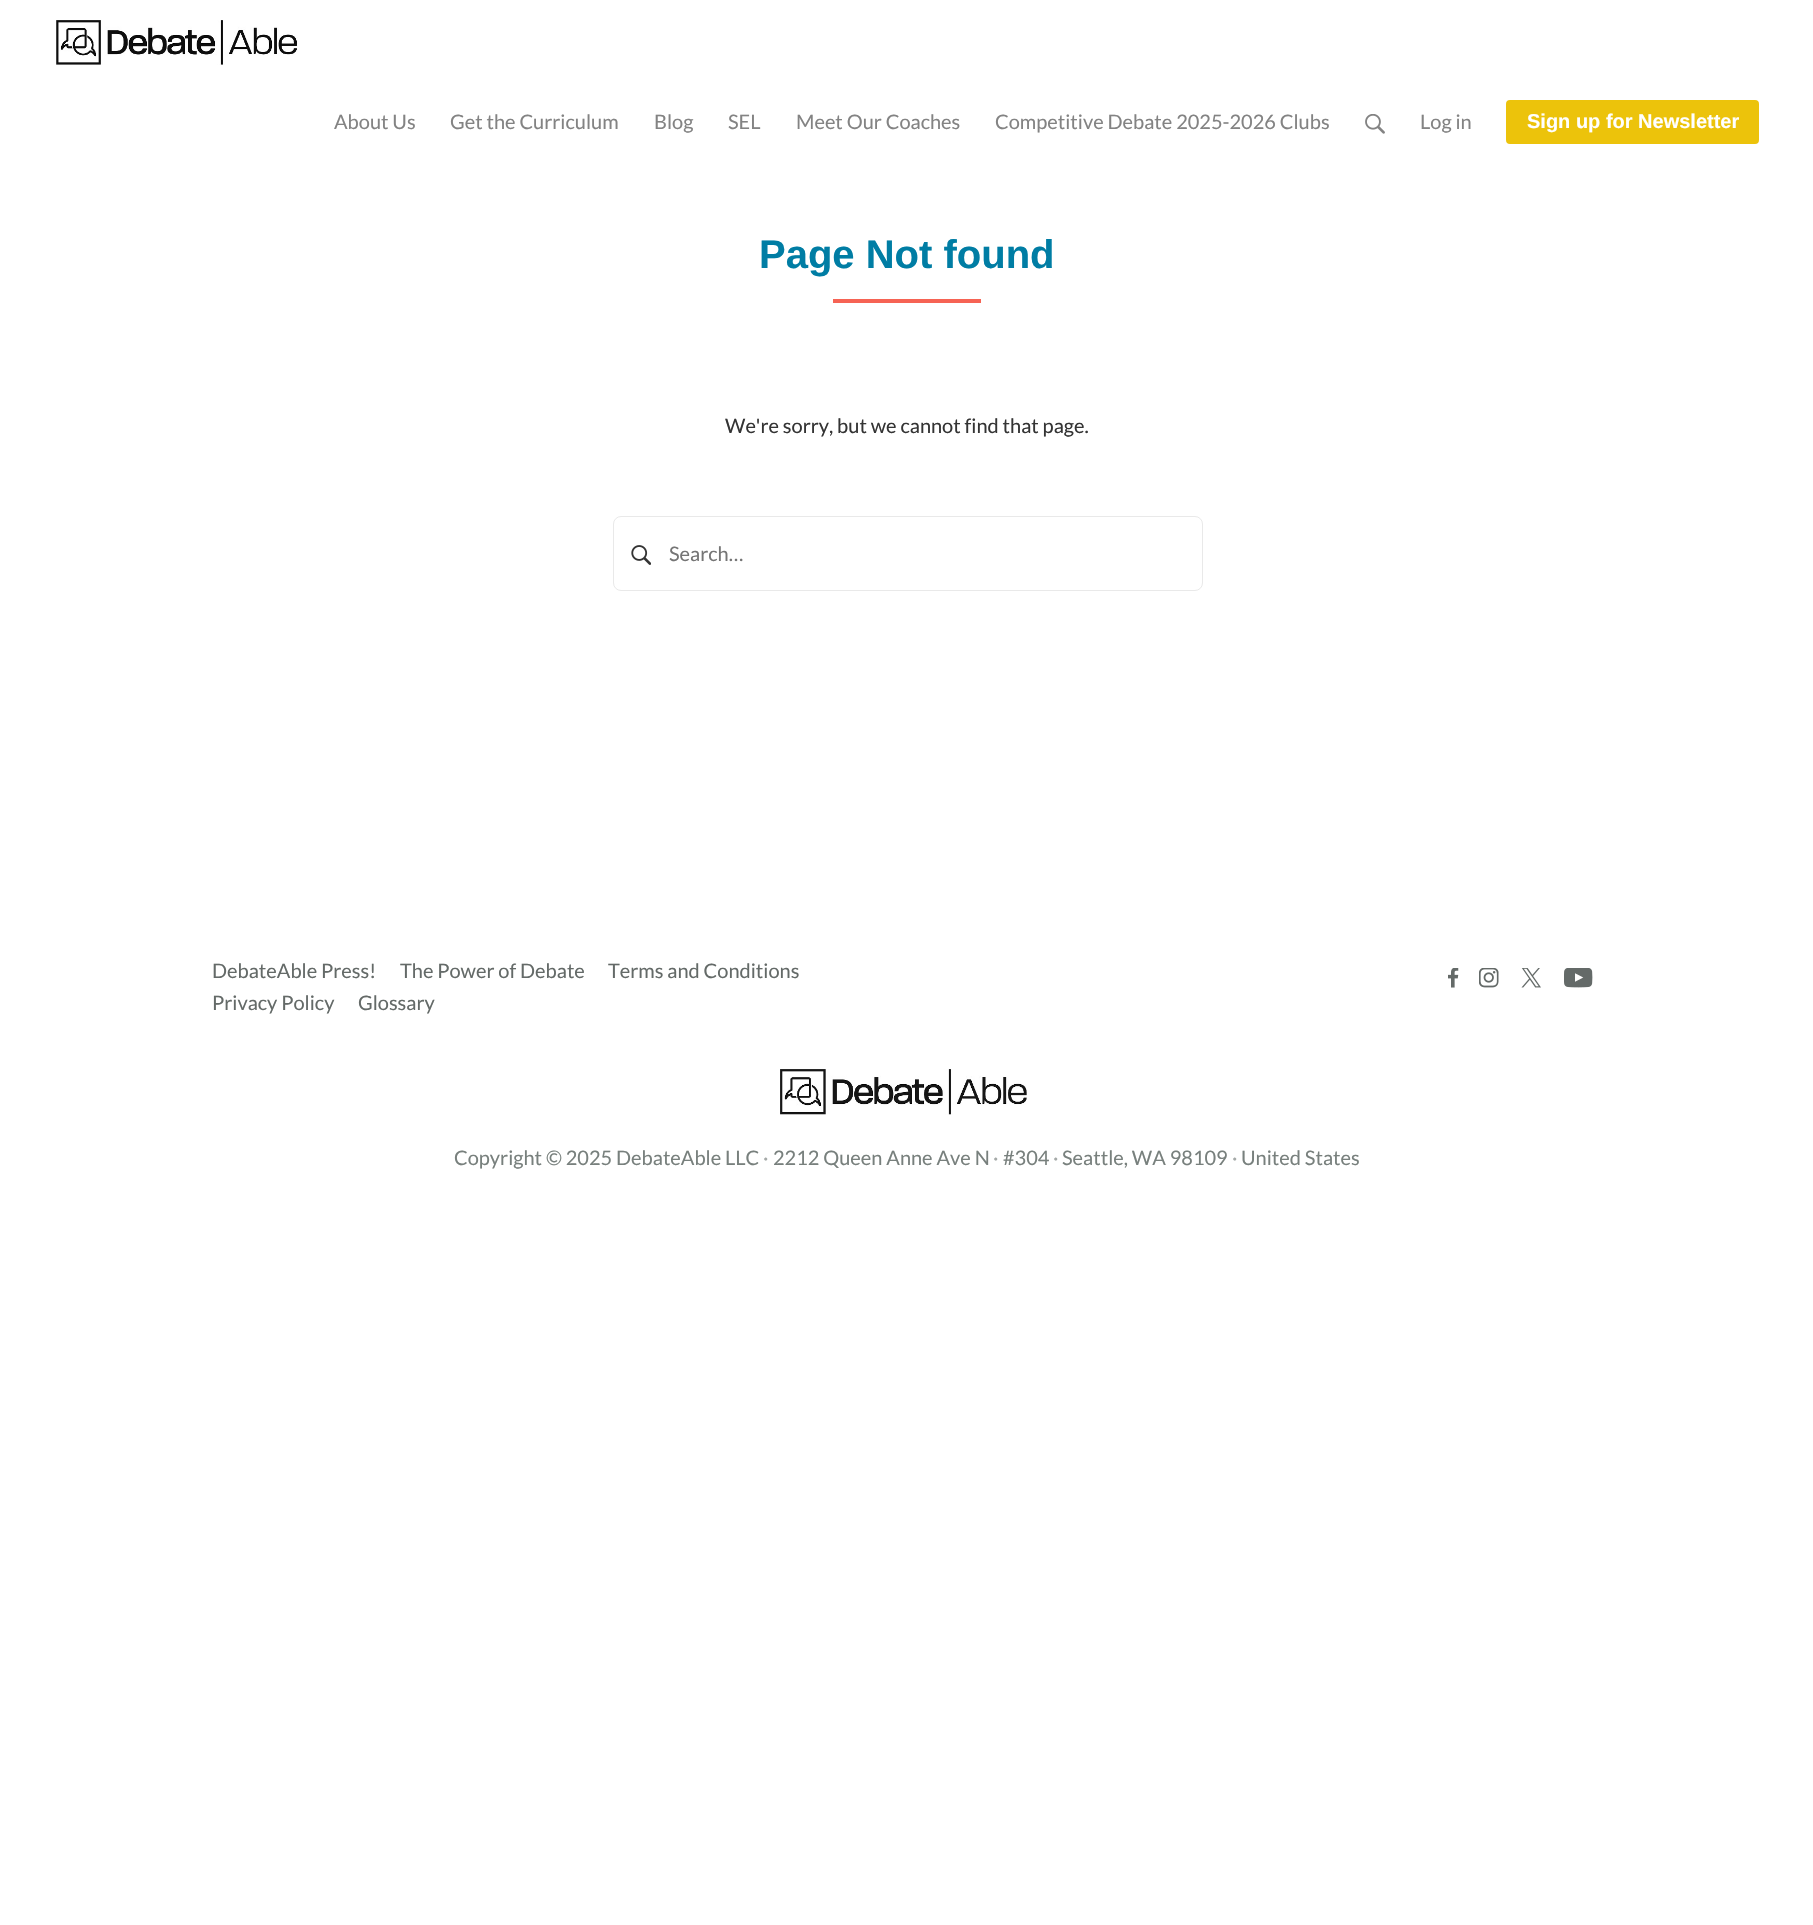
void draw(SkCanvas* canvas) {
  SkPaint paint;
  paint.setAntiAlias(true);
  auto face = [&](const char* family, int weight, float size, bool italic = false) {
    SkFontStyle style(weight, SkFontStyle::kNormal_Width,
      italic ? SkFontStyle::kItalic_Slant : SkFontStyle::kUpright_Slant);
    SkFont result(fontMgr->matchFamilyStyle(family, style), size);
    result.setSubpixel(true);
    return result;
  };
  auto paste = [&](const char* path, float x, float y, float w, float h) {
    auto image = SkImages::DeferredFromEncodedData(SkData::MakeFromFileName(path));
    canvas->drawImageRect(image, SkRect::MakeXYWH(x, y, w, h), SkSamplingOptions());
  };
  auto shape = [&](const char* data, bool evenOdd = false) {
    SkPath result = *SkParsePath::FromSVGString(data);
    if (evenOdd) result.setFillType(SkPathFillType::kEvenOdd);
    return result;
  };
  canvas->clear(0xffffffff);
  paste("img/1.png", 56, 20, 242, 45);
  paste("img/2.png", 1365, 114, 20, 20);
  paint.setColor(0xffecc30b);
  canvas->drawPath(shape("M1510 102H1755C1756 102 1756 103 1756 104V140H1509V103Z"), paint);
  paint.setStroke(true);
  paint.setStrokeWidth(3);
  canvas->drawRoundRect(SkRect::MakeXYWH(1507.5f, 101.5f, 250, 41), 2.5f, 2.5f, paint);
  paint.setStroke(false);
  canvas->drawRect(SkRect::MakeXYWH(1509, 140, 249, 1), paint);
  paint.setColor(0xfff66354);
  canvas->drawRect(SkRect::MakeXYWH(833, 299, 148, 4), paint);
  paint.setStroke(true);
  paint.setStrokeWidth(1);
  paint.setColor(0xffe9e9e9);
  canvas->drawRoundRect(SkRect::MakeXYWH(613.5f, 516.5f, 589, 74), 7.5f, 7.5f, paint);
  paste("img/3.png", 631, 545, 20, 20);
  paste("img/4.png", 1448, 968, 11, 20);
  paste("img/5.png", 1479, 968, 20, 20);
  paste("img/6.png", 1521, 968, 20, 20);
  paste("img/7.png", 1564, 968, 29, 20);
  paste("img/8.png", 780, 1069, 247, 46);
  auto f0 = face("Lato", 400, 20);
  paint.setStroke(false);
  paint.setColor(0xff838383);
  {
    const struct { const char* s; float x, y; } items[] = {
      {"About Us", 334, 129},
      {"Get the Curriculum", 450, 129},
      {"Blog", 654, 129},
      {"SEL", 728, 129},
      {"Meet Our Coaches", 796, 129},
      {"Competitive Debate 2025-2026 Clubs", 995, 129},
      {"Log in", 1420, 129},
    };
    for (auto [s, x, y] : items) {
      canvas->drawString(s, x, y, f0, paint);
    }
  }
  auto f1 = face("Liberation Sans", 700, 20);
  paint.setColor(0xffffffff);
  canvas->drawString("Sign up for Newsletter", 1527, 128, f1, paint);
  auto f2 = face("Liberation Sans", 700, 40);
  paint.setColor(0xff007da4);
  canvas->drawString("Page Not found", 759, 268, f2, paint);
  paint.setColor(0xff343434);
  canvas->drawString("We're sorry, but we cannot find that page.", 725, 433, f0, paint);
  paint.setColor(0xff757575);
  canvas->drawString("Search…", 669, 561, f0, paint);
  paint.setColor(0xff646a68);
  {
    const struct { const char* s; float x, y; } items[] = {
      {"DebateAble Press!", 212, 978},
      {"The Power of Debate", 400, 978},
      {"Terms and Conditions", 608, 978},
      {"Privacy Policy", 212, 1010},
      {"Glossary", 358, 1010},
    };
    for (auto [s, x, y] : items) {
      canvas->drawString(s, x, y, f0, paint);
    }
  }
  paint.setColor(0xff78807d);
  canvas->drawString("Copyright © 2025 DebateAble LLC", 454, 1165, f0, paint);
  paint.setColor(0xffa5aaa8);
  canvas->drawString("·", 763, 1165, f0, paint);
  paint.setColor(0xff78807d);
  canvas->drawString("2212 Queen Anne Ave N", 773, 1165, f0, paint);
  paint.setColor(0xffa5aaa8);
  canvas->drawString("·", 993, 1165, f0, paint);
  paint.setColor(0xff78807d);
  canvas->drawString("#304", 1003, 1165, f0, paint);
  paint.setColor(0xffa5aaa8);
  canvas->drawString("·", 1053, 1165, f0, paint);
  paint.setColor(0xff78807d);
  canvas->drawString("Seattle, WA 98109", 1062, 1165, f0, paint);
  paint.setColor(0xffa5aaa8);
  canvas->drawString("·", 1232, 1165, f0, paint);
  paint.setColor(0xff78807d);
  canvas->drawString("United States", 1241, 1165, f0, paint);
}
